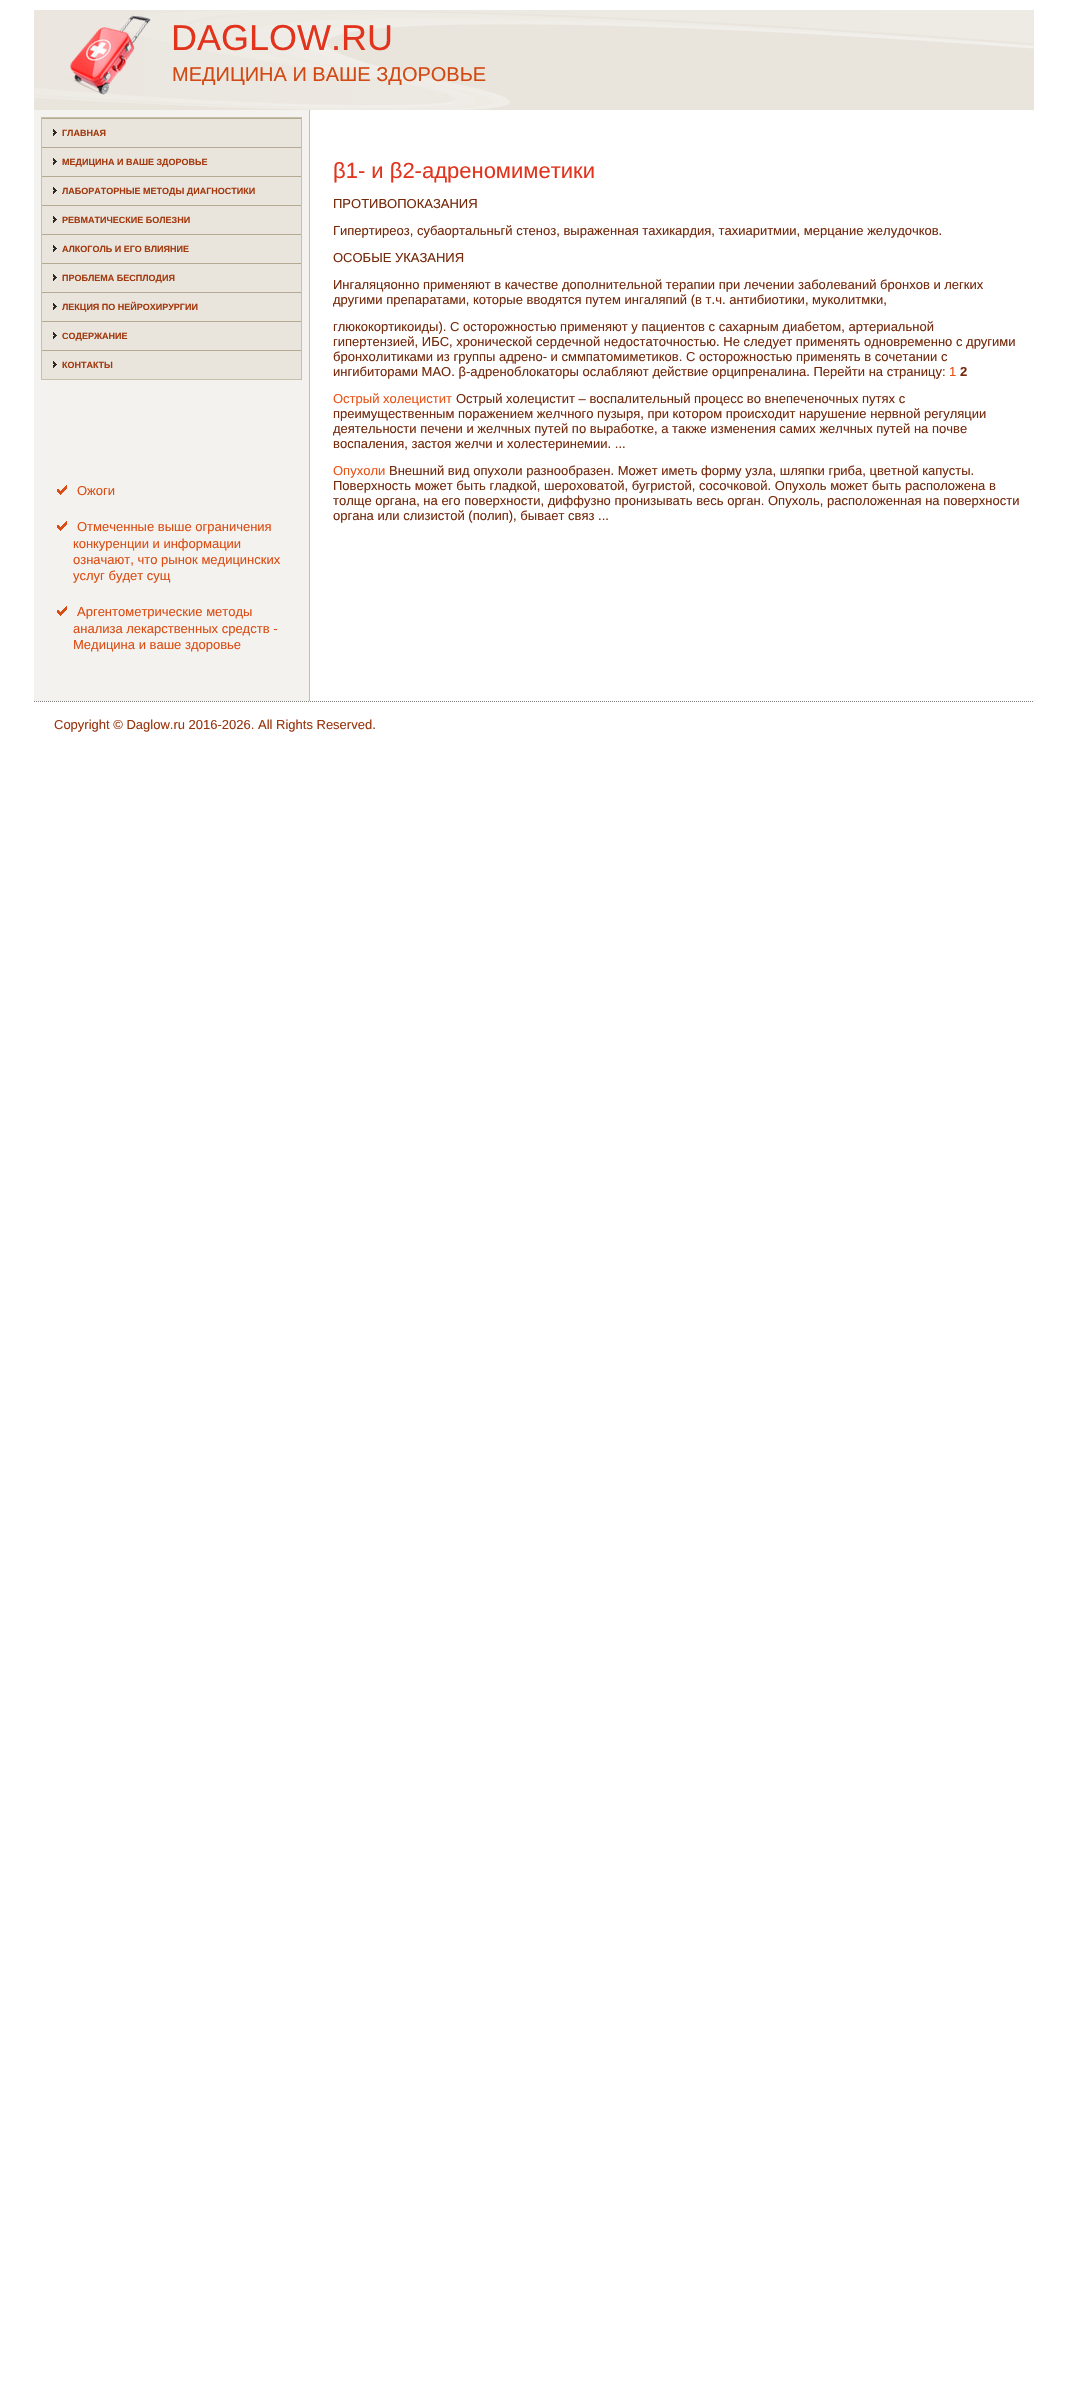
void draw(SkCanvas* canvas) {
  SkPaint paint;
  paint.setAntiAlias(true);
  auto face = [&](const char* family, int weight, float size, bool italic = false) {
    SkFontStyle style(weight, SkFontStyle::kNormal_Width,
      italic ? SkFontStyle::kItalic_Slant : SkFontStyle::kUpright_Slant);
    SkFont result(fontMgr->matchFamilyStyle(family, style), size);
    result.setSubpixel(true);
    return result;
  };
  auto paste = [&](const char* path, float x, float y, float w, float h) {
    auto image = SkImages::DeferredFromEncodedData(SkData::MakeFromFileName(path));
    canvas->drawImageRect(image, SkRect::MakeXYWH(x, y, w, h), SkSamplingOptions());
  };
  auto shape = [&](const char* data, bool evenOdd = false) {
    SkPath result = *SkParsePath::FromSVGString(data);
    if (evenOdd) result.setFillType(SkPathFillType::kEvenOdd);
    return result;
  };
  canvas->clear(0xffffffff);
  paste("img/1.png", 34, 10, 1000, 100);
  {
    const struct { float x, y, w, h; SkColor color; } items[] = {
      {34, 110, 275, 591, 0xfff4f2ee},
      {309, 110, 1, 591, 0xffc8beac},
      {42, 119, 259, 260, 0xffe9e5dd},
    };
    for (auto [x, y, w, h, color] : items) {
      paint.setColor(color);
      canvas->drawRect(SkRect::MakeXYWH(x, y, w, h), paint);
    }
  }
  paint.setStroke(true);
  paint.setStrokeWidth(1);
  paint.setColor(0xffc8beac);
  canvas->drawRect(SkRect::MakeXYWH(41.5f, 117.5f, 260, 262), paint);
  paint.setStroke(false);
  paint.setColor(0xffb6a991);
  canvas->drawRect(SkRect::MakeXYWH(42, 118, 259, 1), paint);
  paste("img/2.png", 53, 129, 4, 7);
  canvas->drawRect(SkRect::MakeXYWH(42, 147, 259, 1), paint);
  paste("img/2.png", 53, 158, 4, 7);
  canvas->drawRect(SkRect::MakeXYWH(42, 176, 259, 1), paint);
  paste("img/2.png", 53, 187, 4, 7);
  canvas->drawRect(SkRect::MakeXYWH(42, 205, 259, 1), paint);
  paste("img/2.png", 53, 216, 4, 7);
  canvas->drawRect(SkRect::MakeXYWH(42, 234, 259, 1), paint);
  paste("img/2.png", 53, 245, 4, 7);
  canvas->drawRect(SkRect::MakeXYWH(42, 263, 259, 1), paint);
  paste("img/2.png", 53, 274, 4, 7);
  canvas->drawRect(SkRect::MakeXYWH(42, 292, 259, 1), paint);
  paste("img/2.png", 53, 303, 4, 7);
  canvas->drawRect(SkRect::MakeXYWH(42, 321, 259, 1), paint);
  paste("img/2.png", 53, 332, 4, 7);
  canvas->drawRect(SkRect::MakeXYWH(42, 350, 259, 1), paint);
  paste("img/2.png", 53, 361, 4, 7);
  paste("img/3.png", 57, 485, 10, 10);
  paste("img/3.png", 57, 521, 10, 10);
  paste("img/3.png", 57, 606, 10, 10);
  paint.setStroke(true);
  paint.setColor(0xff808080);
  paint.setPathEffect(SkDashPathEffect::Make({{1, 1}}, 0));
  canvas->drawPath(shape("M34 701.5H1034"), paint);
  paint.setPathEffect(nullptr);
  auto f0 = face("Liberation Sans", 400, 36);
  paint.setStroke(false);
  paint.setColor(0xffe2341d);
  canvas->drawString("DAGLOW.RU", 171, 50, f0, paint);
  auto f1 = face("Liberation Sans", 400, 20);
  paint.setColor(0xffd24914);
  canvas->drawString("МЕДИЦИНА И ВАШЕ ЗДОРОВЬЕ", 172, 81, f1, paint);
  auto f2 = face("Liberation Sans", 700, 9);
  paint.setColor(0xffa3390f);
  {
    const struct { const char* s; float x, y; } items[] = {
      {"ГЛАВНАЯ", 62, 136},
      {"МЕДИЦИНА И ВАШЕ ЗДОРОВЬЕ", 62, 165},
      {"ЛАБОРАТОРНЫЕ МЕТОДЫ ДИАГНОСТИКИ", 62, 194},
      {"РЕВМАТИЧЕСКИЕ БОЛЕЗНИ", 62, 223},
      {"АЛКОГОЛЬ И ЕГО ВЛИЯНИЕ", 62, 252},
      {"ПРОБЛЕМА БЕСПЛОДИЯ", 62, 281},
      {"ЛЕКЦИЯ ПО НЕЙРОХИРУРГИИ", 62, 310},
      {"СОДЕРЖАНИЕ", 62, 339},
      {"КОНТАКТЫ", 62, 368},
    };
    for (auto [s, x, y] : items) {
      canvas->drawString(s, x, y, f2, paint);
    }
  }
  auto f3 = face("Liberation Sans", 400, 13);
  paint.setColor(0xffdb4d14);
  {
    const struct { const char* s; float x, y; } items[] = {
      {"Ожоги", 77, 495},
      {"Отмеченные выше ограничения", 77, 531},
      {"конкуренции и информации", 73, 548},
      {"означают, что рынок медицинских", 73, 564},
      {"услуг будет сущ", 73, 580},
      {"Аргентометрические методы", 77, 616},
      {"анализа лекарственных средств -", 73, 633},
      {"Медицина и ваше здоровье", 73, 649},
    };
    for (auto [s, x, y] : items) {
      canvas->drawString(s, x, y, f3, paint);
    }
  }
  auto f4 = face("Liberation Sans", 400, 22);
  paint.setColor(0xffe2341d);
  canvas->drawString("β1- и β2-адреномиметики", 333, 178, f4, paint);
  paint.setColor(0xff75290b);
  {
    const struct { const char* s; float x, y; } items[] = {
      {"ПРОТИВОПОКАЗАНИЯ", 333, 208},
      {"Гипертиреоз, субаортальньгй стеноз, выраженная тахикардия, тахиаритмии, мерцание желудочков.", 333, 235},
      {"ОСОБЫЕ УКАЗАНИЯ", 333, 262},
      {"Ингаляцяонно применяют в качестве дополнительной терапии при лечении заболеваний бронхов и легких", 333, 289},
      {"другими препаратами, которые вводятся путем ингаляпий (в т.ч. антибиотики, муколитмки,", 333, 304},
      {"глюкокортикоиды). С осторожностью применяют у пациентов с сахарным диабетом, артериальной", 333, 331},
      {"гипертензией, ИБС, хронической сердечной недостаточностью. Не следует применять одновременно с другими", 333, 346},
      {"бронхолитиками из группы адрено- и сммпатомиметиков. С осторожностью применять в сочетании с", 333, 361},
      {"ингибиторами МАО. β-адреноблокаторы ослабляют действие орципреналина. Перейти на страницу:", 333, 376},
    };
    for (auto [s, x, y] : items) {
      canvas->drawString(s, x, y, f3, paint);
    }
  }
  paint.setColor(0xffe95216);
  canvas->drawString("1", 949, 376, f3, paint);
  auto f5 = face("Liberation Sans", 700, 13);
  paint.setColor(0xff75290b);
  canvas->drawString("2", 960, 376, f5, paint);
  paint.setColor(0xffe95216);
  canvas->drawString("Острый холецистит", 333, 403, f3, paint);
  paint.setColor(0xff75290b);
  {
    const struct { const char* s; float x, y; } items[] = {
      {"Острый холецистит – воспалительный процесс во внепеченочных путях с", 456, 403},
      {"преимущественным поражением желчного пузыря, при котором происходит нарушение нервной регуляции", 333, 418},
      {"деятельности печени и желчных путей по выработке, а также изменения самих желчных путей на почве", 333, 433},
      {"воспаления, застоя желчи и холестеринемии. ...", 333, 448},
    };
    for (auto [s, x, y] : items) {
      canvas->drawString(s, x, y, f3, paint);
    }
  }
  paint.setColor(0xffe95216);
  canvas->drawString("Опухоли", 333, 475, f3, paint);
  paint.setColor(0xff75290b);
  {
    const struct { const char* s; float x, y; } items[] = {
      {"Внешний вид опухоли разнообразен. Может иметь форму узла, шляпки гриба, цветной капусты.", 389, 475},
      {"Поверхность может быть гладкой, шероховатой, бугристой, сосочковой. Опухоль может быть расположена в", 333, 490},
      {"толще органа, на его поверхности, диффузно пронизывать весь орган. Опухоль, расположенная на поверхности", 333, 505},
      {"органа или слизистой (полип), бывает связ ...", 333, 520},
    };
    for (auto [s, x, y] : items) {
      canvas->drawString(s, x, y, f3, paint);
    }
  }
  paint.setColor(0xff9a360e);
  canvas->drawString("Copyright © Daglow.ru 2016-2026. All Rights Reserved.", 54, 729, f3, paint);
}
